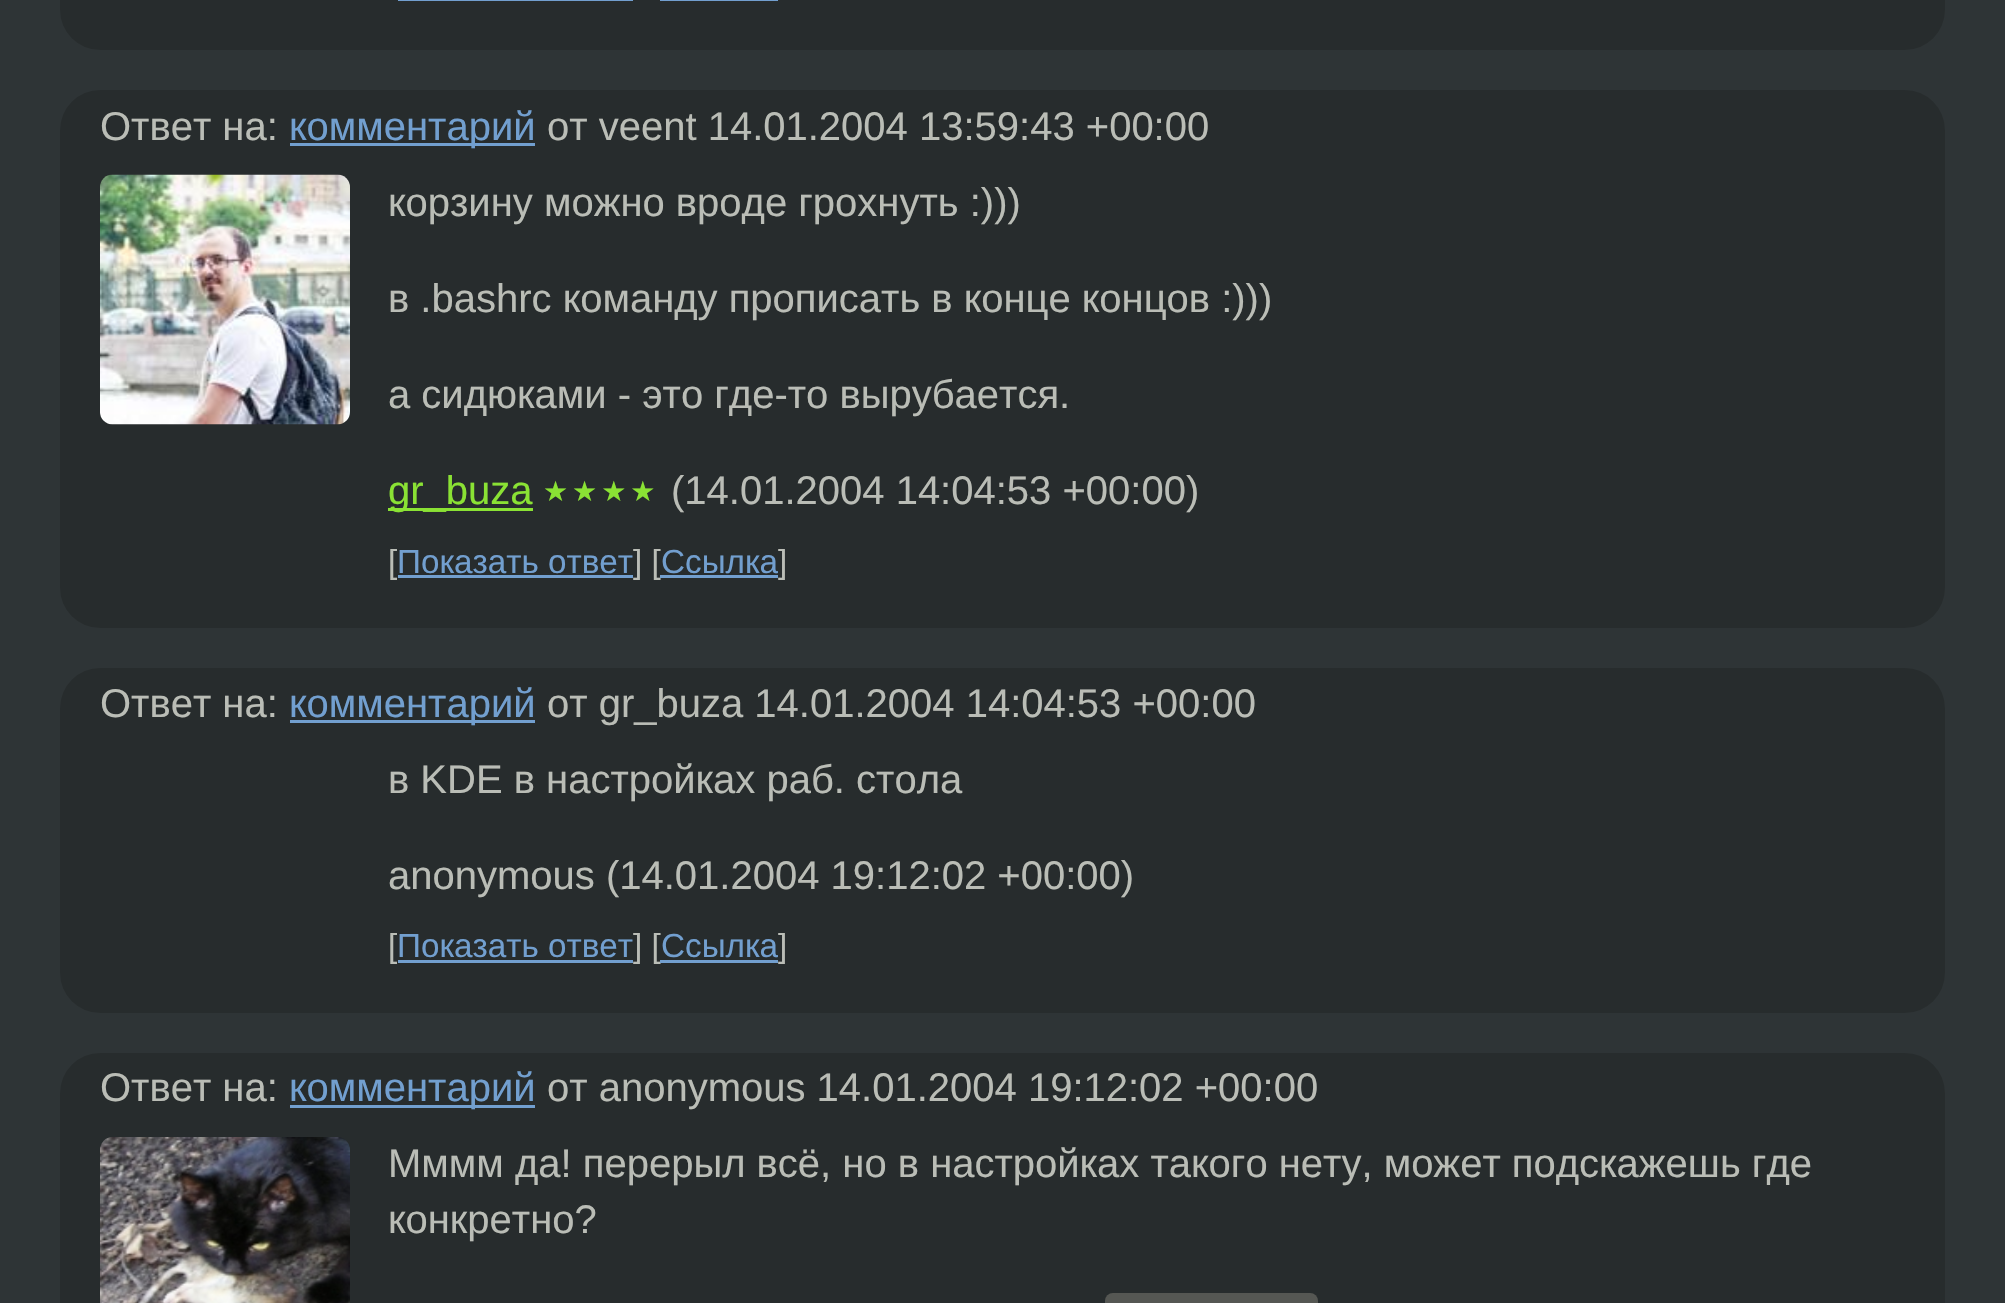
void draw(SkCanvas* canvas) {
  SkPaint paint;
  paint.setAntiAlias(true);
  auto face = [&](const char* family, int weight, float size, bool italic = false) {
    SkFontStyle style(weight, SkFontStyle::kNormal_Width,
      italic ? SkFontStyle::kItalic_Slant : SkFontStyle::kUpright_Slant);
    SkFont result(fontMgr->matchFamilyStyle(family, style), size);
    result.setSubpixel(true);
    return result;
  };
  auto writeSpaced = [&](const char* s, float x, float y, const SkFont& font, const SkPaint& ink, float letter, float word) {
    std::vector<SkGlyphID> glyphs(font.countText(s, strlen(s), SkTextEncoding::kUTF8));
    std::vector<float> xs(glyphs.size());
    font.textToGlyphs(s, strlen(s), SkTextEncoding::kUTF8, glyphs);
    font.getXPos(glyphs, xs, x);
    float extra = 0;
    for (size_t i = 0; i < glyphs.size(); i++) {
      xs[i] += extra;
      extra += letter + word * (glyphs[i] == font.unicharToGlyph(' '));
    }
    canvas->drawTextBlob(SkTextBlob::MakeFromPosHGlyphs(glyphs, xs, y, font), 0, 0, ink);
  };
  auto paste = [&](const char* path, float x, float y, float w, float h) {
    auto image = SkImages::DeferredFromEncodedData(SkData::MakeFromFileName(path));
    canvas->drawImageRect(image, SkRect::MakeXYWH(x, y, w, h), SkSamplingOptions());
  };
  canvas->clear(0xff2e3436);
  paint.setColor(0xff272c2d);
  canvas->drawRoundRect(SkRect::MakeXYWH(60, -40, 1885, 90), 40, 40, paint);
  paint.setColor(0xff729fcf);
  canvas->drawRect(SkRect::MakeXYWH(398, 0, 235, 1), paint);
  canvas->drawRect(SkRect::MakeXYWH(660, 0, 118, 1), paint);
  paint.setColor(0xff272c2d);
  canvas->drawRoundRect(SkRect::MakeXYWH(60, 90, 1885, 538), 40, 40, paint);
  paint.setColor(0xff729fcf);
  canvas->drawRect(SkRect::MakeXYWH(290, 143, 245, 3), paint);
  paste("img/1.png", 100, 174, 250, 251);
  paint.setColor(0xff8ae234);
  canvas->drawRect(SkRect::MakeXYWH(388, 508, 145, 3), paint);
  paint.setColor(0xff729fcf);
  canvas->drawRect(SkRect::MakeXYWH(398, 575, 235, 3), paint);
  paint.setColor(0xff272c2d);
  canvas->drawRoundRect(SkRect::MakeXYWH(60, 668, 1885, 345), 40, 40, paint);
  paint.setColor(0xff729fcf);
  canvas->drawRect(SkRect::MakeXYWH(290, 720, 245, 3), paint);
  canvas->drawRect(SkRect::MakeXYWH(398, 960, 235, 3), paint);
  paint.setColor(0xff272c2d);
  canvas->drawRoundRect(SkRect::MakeXYWH(60, 1053, 1885, 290), 40, 40, paint);
  paint.setColor(0xff729fcf);
  canvas->drawRect(SkRect::MakeXYWH(290, 1105, 245, 3), paint);
  paste("img/2.png", 100, 1137, 250, 166);
  paint.setColor(0xff555753);
  canvas->drawRoundRect(SkRect::MakeXYWH(1105, 1293, 213, 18), 8, 8, paint);
  auto f0 = face("Liberation Sans", 400, 40);
  paint.setColor(0xffbabdb6);
  canvas->drawString("Ответ на:", 100, 140, f0, paint);
  paint.setColor(0xff729fcf);
  canvas->drawString("комментарий", 289, 140, f0, paint);
  paint.setColor(0xffbabdb6);
  {
    const struct { const char* s; float x, y; } items[] = {
      {"от veent 14.01.2004 13:59:43 +00:00", 547, 140},
      {"корзину можно вроде грохнуть :)))", 388, 216},
      {"в .bashrc команду прописать в конце концов :)))", 388, 312},
      {"а сидюками - это где-то вырубается.", 388, 408},
    };
    for (auto [s, x, y] : items) {
      canvas->drawString(s, x, y, f0, paint);
    }
  }
  paint.setColor(0xff8ae234);
  canvas->drawString("gr_buza", 388, 504, f0, paint);
  auto f1 = face("DejaVu Sans", 400, 28);
  writeSpaced("★★★★", 543, 501, f1, paint, 4, 0);
  paint.setColor(0xffbabdb6);
  canvas->drawString("(14.01.2004 14:04:53 +00:00)", 671, 504, f0, paint);
  auto f2 = face("Liberation Sans", 400, 33.25f);
  canvas->drawString("[", 388, 573, f2, paint);
  paint.setColor(0xff729fcf);
  canvas->drawString("Показать ответ", 397, 573, f2, paint);
  paint.setColor(0xffbabdb6);
  canvas->drawString("] [", 633, 573, f2, paint);
  paint.setColor(0xff729fcf);
  canvas->drawRect(SkRect::MakeXYWH(660, 575, 118, 3), paint);
  canvas->drawString("Ссылка", 661, 573, f2, paint);
  paint.setColor(0xffbabdb6);
  canvas->drawString("]", 778, 573, f2, paint);
  canvas->drawString("Ответ на:", 100, 717, f0, paint);
  paint.setColor(0xff729fcf);
  canvas->drawString("комментарий", 289, 717, f0, paint);
  paint.setColor(0xffbabdb6);
  {
    const struct { const char* s; float x, y; } items[] = {
      {"от gr_buza 14.01.2004 14:04:53 +00:00", 547, 717},
      {"в KDE в настройках раб. стола", 388, 793},
      {"anonymous (14.01.2004 19:12:02 +00:00)", 388, 889},
    };
    for (auto [s, x, y] : items) {
      canvas->drawString(s, x, y, f0, paint);
    }
  }
  canvas->drawString("[", 388, 957, f2, paint);
  paint.setColor(0xff729fcf);
  canvas->drawString("Показать ответ", 397, 957, f2, paint);
  paint.setColor(0xffbabdb6);
  canvas->drawString("] [", 633, 957, f2, paint);
  paint.setColor(0xff729fcf);
  canvas->drawRect(SkRect::MakeXYWH(660, 960, 118, 3), paint);
  canvas->drawString("Ссылка", 661, 957, f2, paint);
  paint.setColor(0xffbabdb6);
  canvas->drawString("]", 778, 957, f2, paint);
  canvas->drawString("Ответ на:", 100, 1101, f0, paint);
  paint.setColor(0xff729fcf);
  canvas->drawString("комментарий", 289, 1101, f0, paint);
  paint.setColor(0xffbabdb6);
  {
    const struct { const char* s; float x, y; } items[] = {
      {"от anonymous 14.01.2004 19:12:02 +00:00", 547, 1101},
      {"Мммм да! перерыл всё, но в настройках такого нету, может подскажешь где", 388, 1177},
      {"конкретно?", 388, 1233},
    };
    for (auto [s, x, y] : items) {
      canvas->drawString(s, x, y, f0, paint);
    }
  }
}
